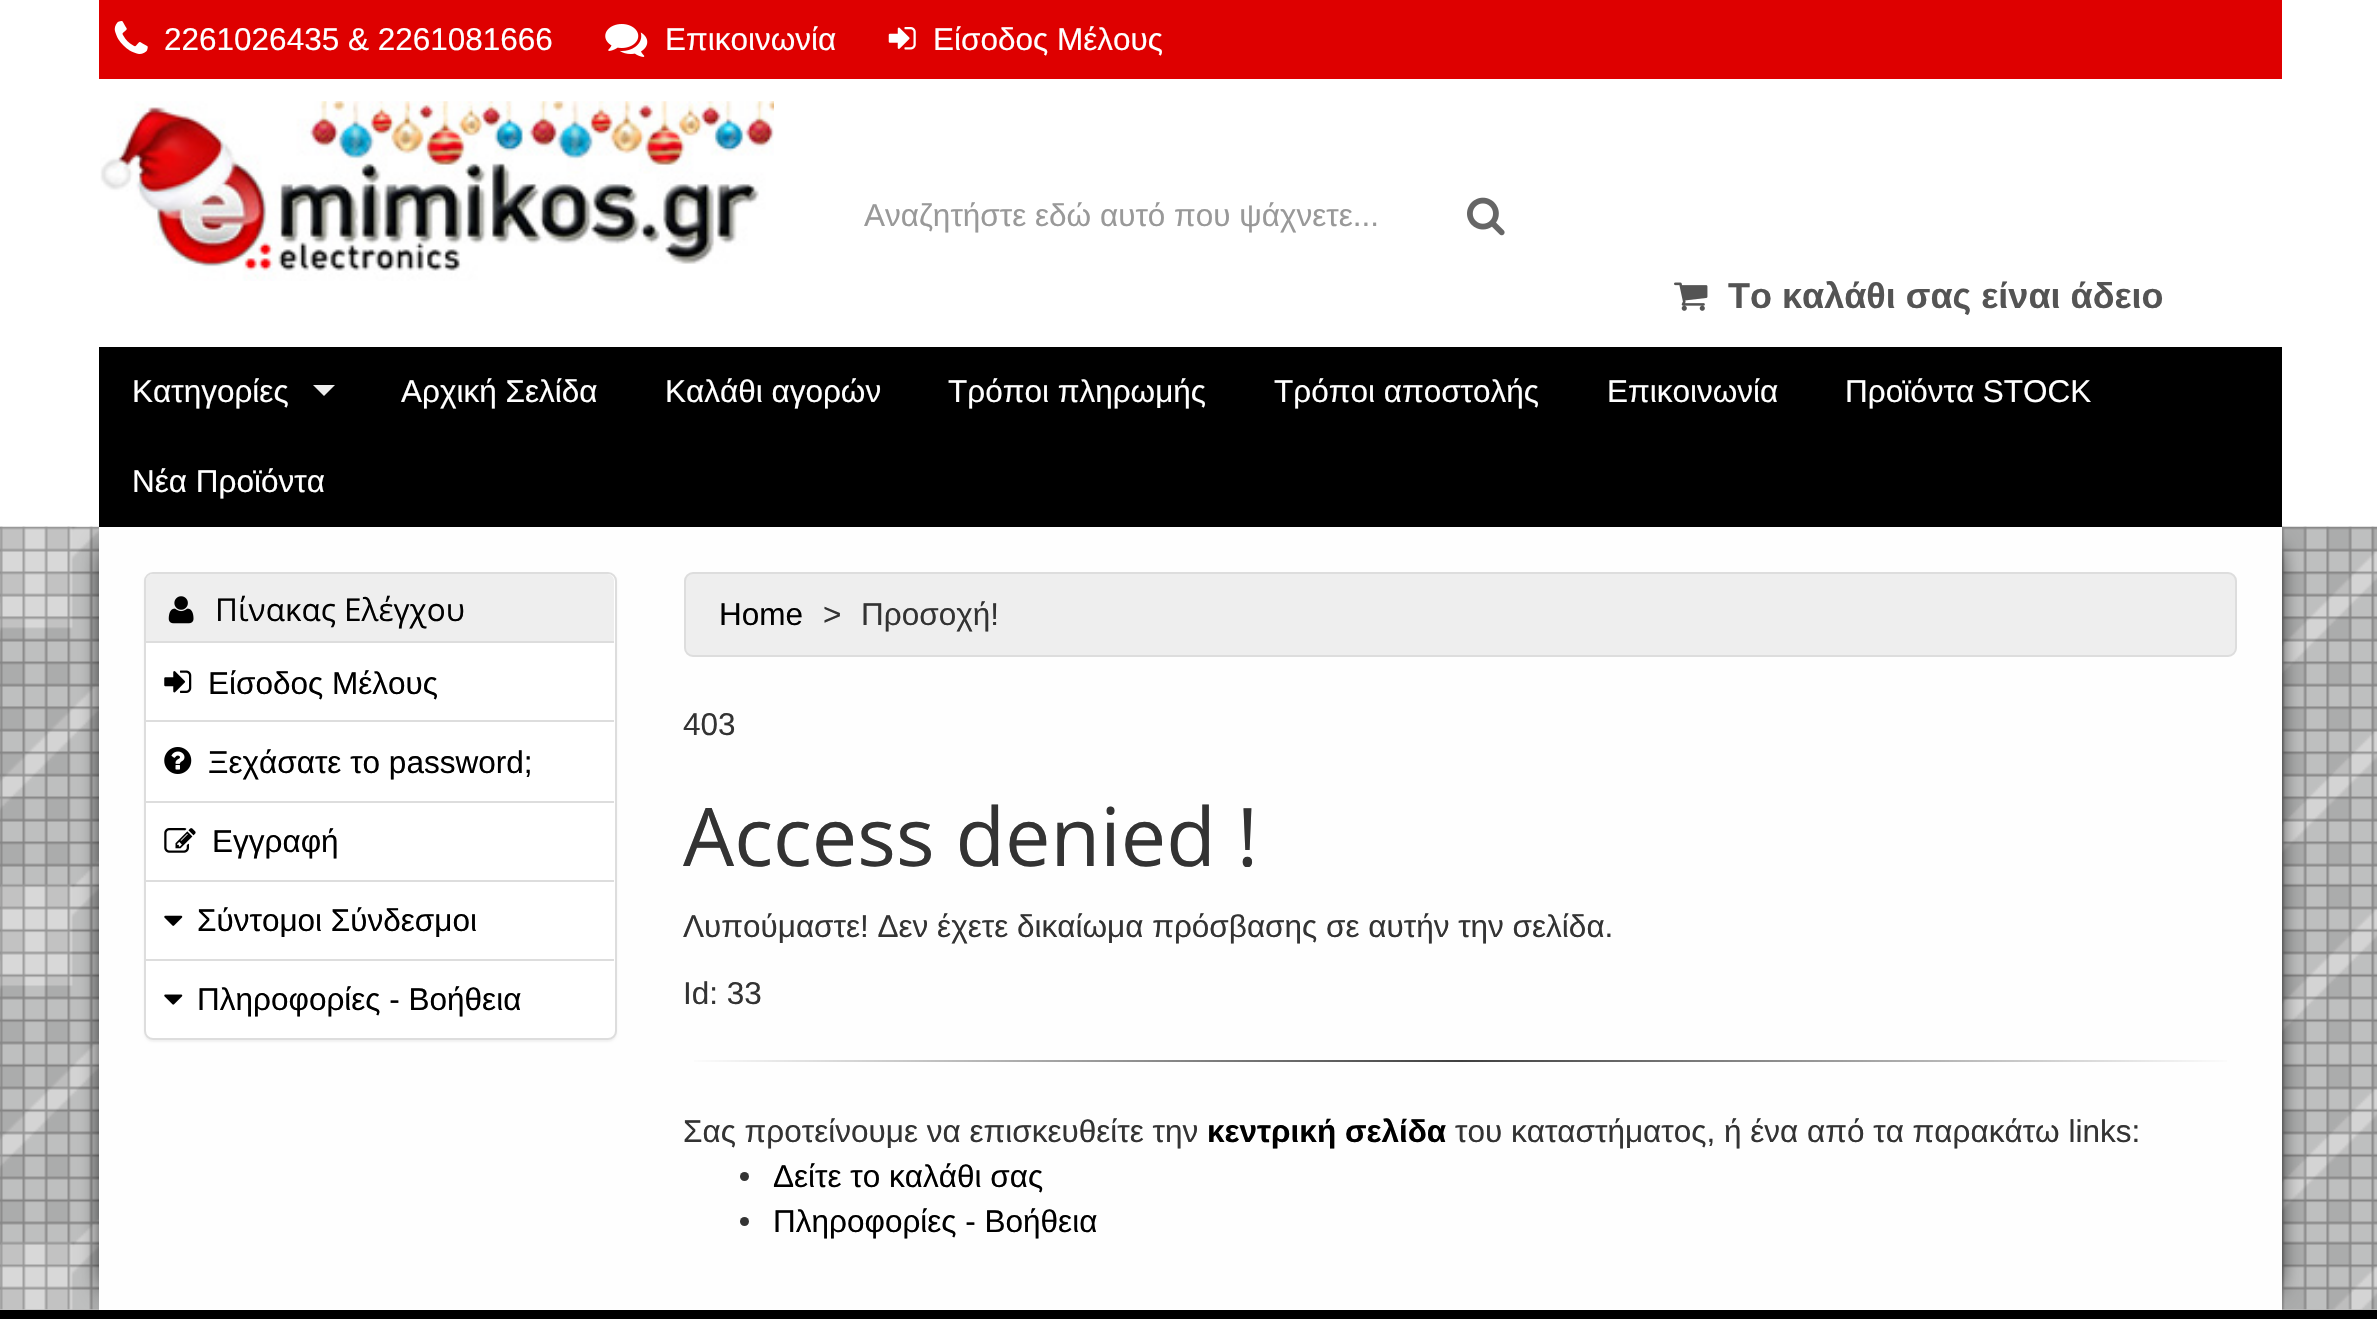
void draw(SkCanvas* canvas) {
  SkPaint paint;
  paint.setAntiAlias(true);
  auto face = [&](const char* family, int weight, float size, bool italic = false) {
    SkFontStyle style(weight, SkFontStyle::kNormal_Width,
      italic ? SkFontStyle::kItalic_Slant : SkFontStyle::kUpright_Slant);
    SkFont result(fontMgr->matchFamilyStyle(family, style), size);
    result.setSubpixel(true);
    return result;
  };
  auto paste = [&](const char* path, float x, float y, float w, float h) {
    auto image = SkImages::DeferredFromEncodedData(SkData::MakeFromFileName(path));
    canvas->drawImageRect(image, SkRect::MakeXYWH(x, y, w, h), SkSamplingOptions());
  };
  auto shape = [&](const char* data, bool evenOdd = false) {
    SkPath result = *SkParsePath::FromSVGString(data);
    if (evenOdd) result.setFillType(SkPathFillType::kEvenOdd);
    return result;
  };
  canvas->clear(0xffffffff);
  paint.setColor(0xffde0000);
  canvas->drawRect(SkRect::MakeXYWH(99, 0, 2183, 79), paint);
  paste("img/1.png", 114, 21, 34, 33);
  paste("img/2.png", 605, 24, 43, 33);
  paste("img/3.png", 888, 27, 28, 23);
  paste("img/4.png", 100, 101, 674, 180);
  paste("img/5.png", 1467, 197, 38, 39);
  paste("img/6.png", 1674, 282, 34, 29);
  paint.setColor(0xffd4d4d4);
  canvas->drawRect(SkRect::MakeXYWH(0, 527, 2377, 783), paint);
  paste("img/7.png", 0, 526, 2377, 784);
  paint.setColor(0xff000000);
  paint.setMaskFilter(SkMaskFilter::MakeBlur(kNormal_SkBlurStyle, 11));
  canvas->drawRect(SkRect::MakeXYWH(104, 549, 2137, 738), paint);
  paint.setMaskFilter(nullptr);
  paint.setMaskFilter(SkMaskFilter::MakeBlur(kNormal_SkBlurStyle, 11));
  canvas->drawRect(SkRect::MakeXYWH(140, 549, 2137, 738), paint);
  paint.setMaskFilter(nullptr);
  canvas->drawRect(SkRect::MakeXYWH(99, 347, 2183, 180), paint);
  paint.setColor(0xffeeeeee);
  canvas->drawPath(shape("M313 385H335L324 396Z"), paint);
  paint.setColor(0xfffefefe);
  canvas->drawRect(SkRect::MakeXYWH(99, 527, 2183, 783), paint);
  paint.setColor(0x0d000000);
  paint.setMaskFilter(SkMaskFilter::MakeBlur(kNormal_SkBlurStyle, 1));
  canvas->drawRoundRect(SkRect::MakeXYWH(144, 574, 473, 468), 9, 9, paint);
  paint.setMaskFilter(nullptr);
  paint.setColor(0xffffffff);
  canvas->drawRoundRect(SkRect::MakeXYWH(145, 573, 471, 466), 8, 8, paint);
  paint.setStroke(true);
  paint.setStrokeWidth(2);
  paint.setColor(0xffdddddd);
  canvas->drawRoundRect(SkRect::MakeXYWH(145, 573, 471, 466), 8, 8, paint);
  paint.setStroke(false);
  paint.setColor(0xffeeeeee);
  canvas->drawPath(shape("M153 574H607C611 574 614 577 614 581V644H146V581C146 577 149 574 153 574Z"), paint);
  paste("img/8.png", 168, 596, 26, 28);
  paint.setColor(0xffffffff);
  canvas->drawPath(shape("M146 641H614V711C614 716 610 720 605 720H155C150 720 146 716 146 711Z"), paint);
  paint.setColor(0xffdddddd);
  canvas->drawRect(SkRect::MakeXYWH(146, 641, 468, 2), paint);
  paste("img/9.png", 164, 670, 28, 23);
  canvas->drawRect(SkRect::MakeXYWH(146, 720, 468, 2), paint);
  paste("img/10.png", 164, 747, 28, 27);
  canvas->drawRect(SkRect::MakeXYWH(146, 801, 468, 2), paint);
  paste("img/11.png", 164, 828, 32, 25);
  canvas->drawRect(SkRect::MakeXYWH(146, 880, 468, 2), paint);
  paste("img/12.png", 164, 915, 19, 11);
  canvas->drawRect(SkRect::MakeXYWH(146, 959, 468, 2), paint);
  paste("img/13.png", 164, 994, 19, 11);
  paint.setColor(0xffeeeeee);
  canvas->drawRoundRect(SkRect::MakeXYWH(685, 573, 1551, 83), 8, 8, paint);
  paint.setStroke(true);
  paint.setColor(0xffdddddd);
  canvas->drawRoundRect(SkRect::MakeXYWH(685, 573, 1551, 83), 8, 8, paint);
  paint.setStroke(false);
  {
    const SkColor colors[] = {0xfffefefe, 0xff404040, 0xfffefefe};
    const float stops[] = {0, 0.5f, 1};
    const SkPoint ends[] = {{684, 1061}, {2237, 1061}};
    paint.setShader(SkGradientShader::MakeLinear(ends, colors, stops, 3, SkTileMode::kClamp));
    paint.setAlpha(255);
  }
  canvas->drawRect(SkRect::MakeXYWH(694, 1060, 1533, 2), paint);
  paint.setShader(nullptr);
  paint.setColor(0xff333333);
  canvas->drawCircle(744.5f, 1176.5f, 4.5f, paint);
  canvas->drawCircle(744.5f, 1221.5f, 4.5f, paint);
  paint.setColor(0xff000000);
  canvas->drawRect(SkRect::MakeXYWH(0, 1310, 2377, 9), paint);
  auto f0 = face("Liberation Sans", 400, 31.5f);
  paint.setColor(0xffffffff);
  {
    const struct { const char* s; float x, y; } items[] = {
      {"2261026435 & 2261081666", 164, 50},
      {"Επικοινωνία", 665, 50},
      {"Είσοδος Μέλους", 933, 50},
    };
    for (auto [s, x, y] : items) {
      canvas->drawString(s, x, y, f0, paint);
    }
  }
  paint.setColor(0xff999999);
  canvas->drawString("Αναζητήστε εδώ αυτό που ψάχνετε...", 864, 226, f0, paint);
  auto f1 = face("Liberation Sans", 700, 36);
  paint.setColor(0xff545454);
  canvas->drawString("Το καλάθι σας είναι άδειο", 1728, 308, f1, paint);
  paint.setColor(0xffffffff);
  {
    const struct { const char* s; float x, y; } items[] = {
      {"Κατηγορίες", 132, 402},
      {"Αρχική Σελίδα", 401, 402},
      {"Καλάθι αγορών", 665, 402},
      {"Τρόποι πληρωμής", 948, 402},
      {"Τρόποι αποστολής", 1274, 402},
      {"Επικοινωνία", 1607, 402},
      {"Προϊόντα STOCK", 1845, 402},
      {"Νέα Προϊόντα", 132, 492},
    };
    for (auto [s, x, y] : items) {
      canvas->drawString(s, x, y, f0, paint);
    }
  }
  auto f2 = face("Open Sans", 400, 31.5f);
  paint.setColor(0xff000000);
  canvas->drawString("Πίνακας Ελέγχου", 215, 621, f2, paint);
  {
    const struct { const char* s; float x, y; } items[] = {
      {"Είσοδος Μέλους", 208, 694},
      {"Ξεχάσατε το password;", 208, 773},
      {"Εγγραφή", 212, 852},
      {"Σύντομοι Σύνδεσμοι", 197, 931},
      {"Πληροφορίες - Βοήθεια", 197, 1010},
      {"Home", 719, 625},
    };
    for (auto [s, x, y] : items) {
      canvas->drawString(s, x, y, f0, paint);
    }
  }
  paint.setColor(0xff333333);
  {
    const struct { const char* s; float x, y; } items[] = {
      {">", 823, 625},
      {"Προσοχή!", 861, 625},
      {"403", 683, 735},
    };
    for (auto [s, x, y] : items) {
      canvas->drawString(s, x, y, f0, paint);
    }
  }
  auto f3 = face("Open Sans", 400, 81);
  canvas->drawString("Access denied !", 683, 866, f3, paint);
  {
    const struct { const char* s; float x, y; } items[] = {
      {"Λυπούμαστε! Δεν έχετε δικαίωμα πρόσβασης σε αυτήν την σελίδα.", 683, 937},
      {"Id: 33", 683, 1004},
      {"Σας προτείνουμε να επισκευθείτε την", 683, 1142},
    };
    for (auto [s, x, y] : items) {
      canvas->drawString(s, x, y, f0, paint);
    }
  }
  auto f4 = face("Liberation Sans", 700, 31.5f);
  paint.setColor(0xff000000);
  canvas->drawString("κεντρική σελίδα", 1207, 1142, f4, paint);
  paint.setColor(0xff333333);
  canvas->drawString("του καταστήματος, ή ένα από τα παρακάτω links:", 1455, 1142, f0, paint);
  paint.setColor(0xff000000);
  canvas->drawString("Δείτε το καλάθι σας", 773, 1187, f0, paint);
  canvas->drawString("Πληροφορίες - Βοήθεια", 773, 1232, f0, paint);
}
